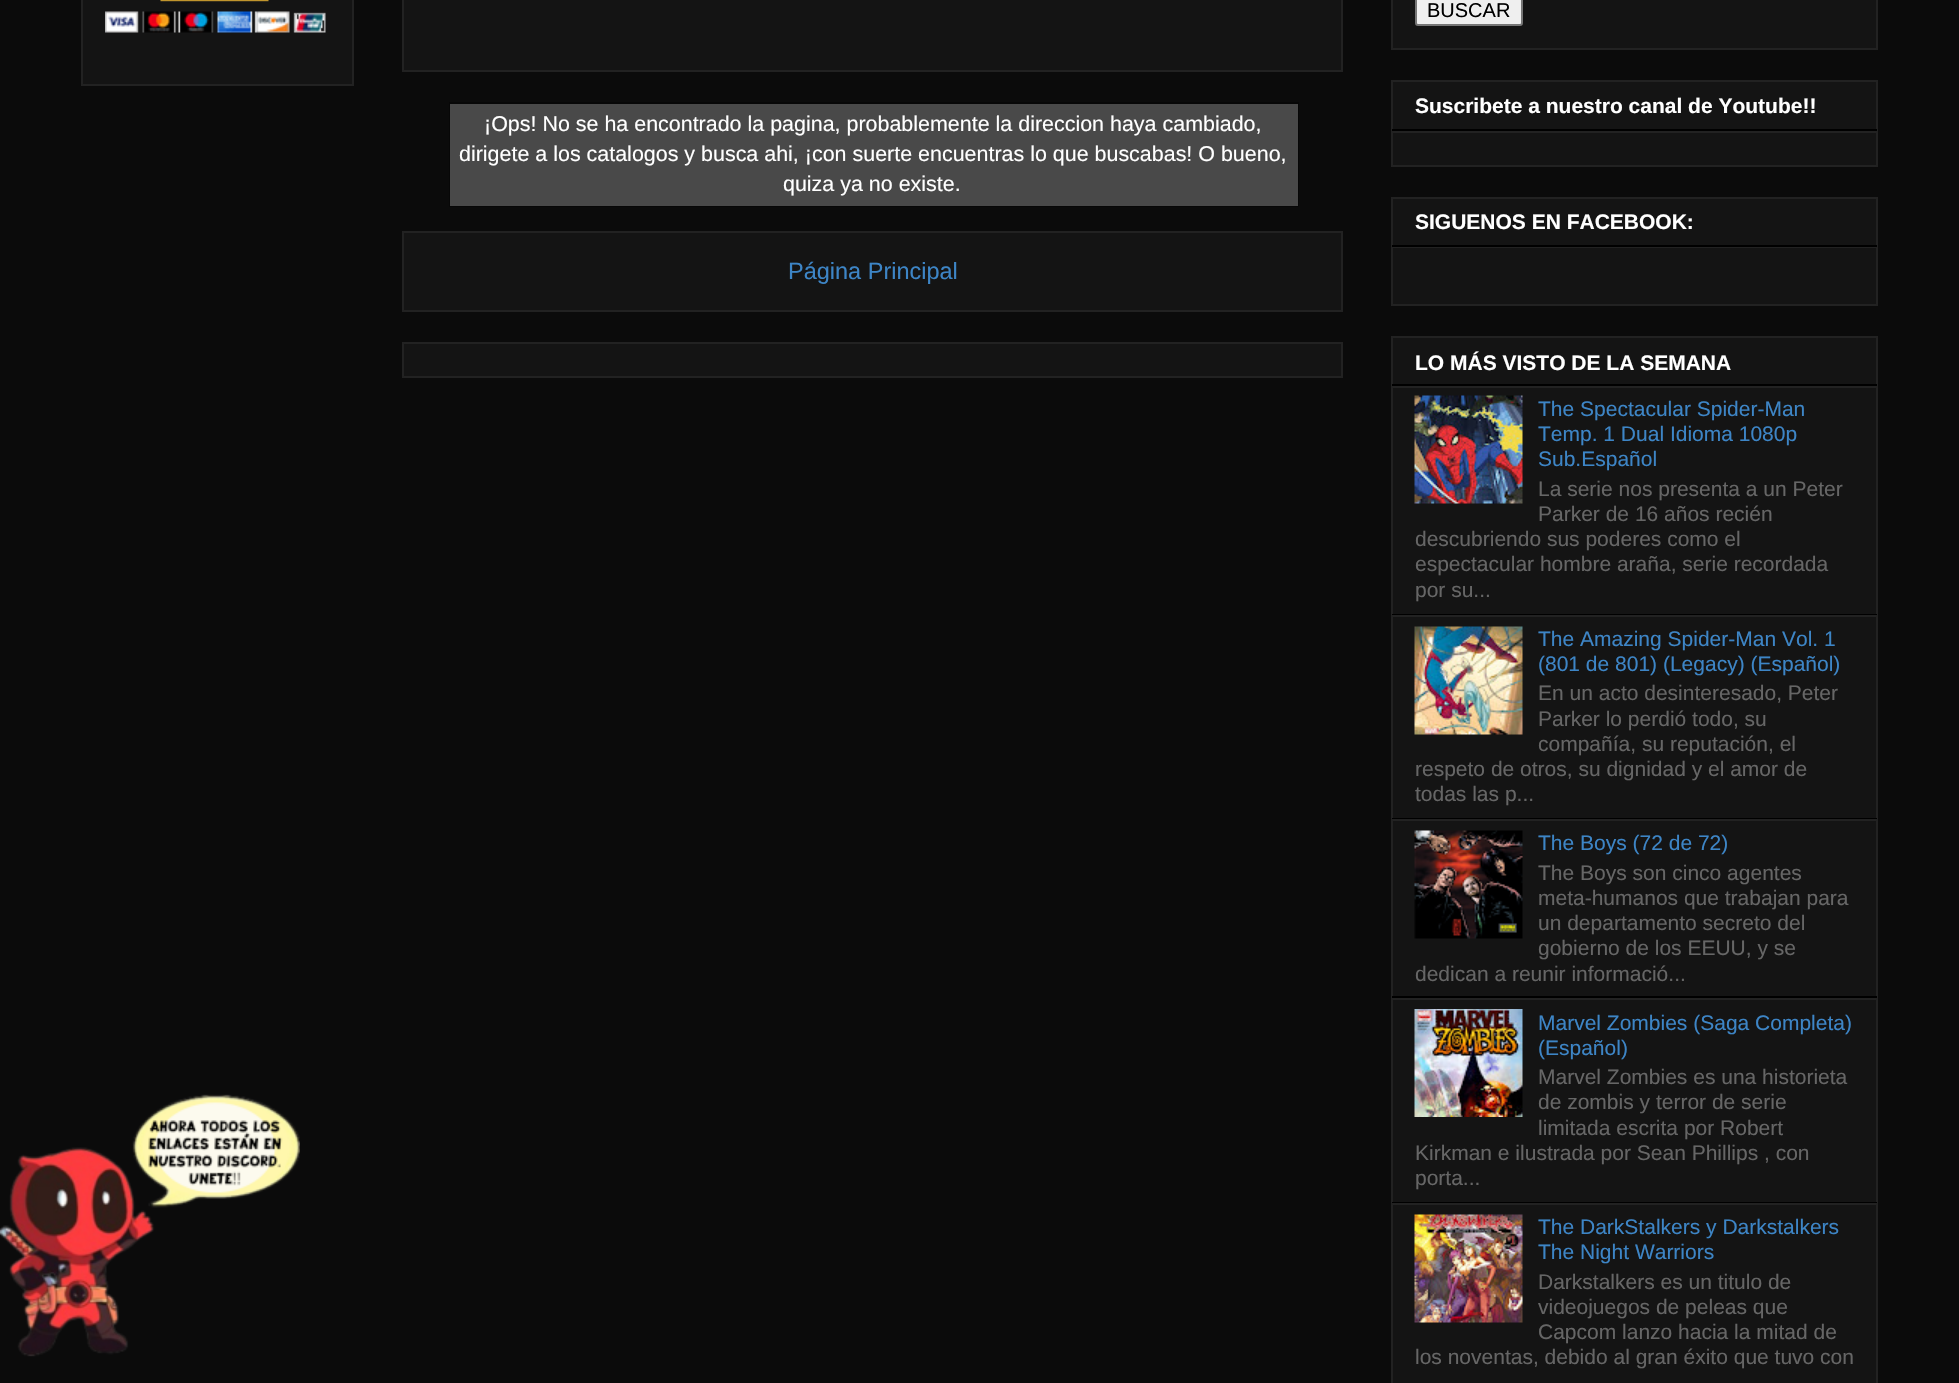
void draw(SkCanvas* canvas) {
  SkPaint paint;
  paint.setAntiAlias(true);
  auto face = [&](const char* family, int weight, float size, bool italic = false) {
    SkFontStyle style(weight, SkFontStyle::kNormal_Width,
      italic ? SkFontStyle::kItalic_Slant : SkFontStyle::kUpright_Slant);
    SkFont result(fontMgr->matchFamilyStyle(family, style), size);
    result.setSubpixel(true);
    return result;
  };
  auto paste = [&](const char* path, float x, float y, float w, float h) {
    auto image = SkImages::DeferredFromEncodedData(SkData::MakeFromFileName(path));
    canvas->drawImageRect(image, SkRect::MakeXYWH(x, y, w, h), SkSamplingOptions());
  };
  canvas->clear(0xff0b0b0b);
  paste("img/1.png", 0, 1094, 300, 263);
  paint.setColor(0xff141414);
  canvas->drawRect(SkRect::MakeXYWH(82, -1, 271, 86), paint);
  paint.setStroke(true);
  paint.setStrokeWidth(2);
  paint.setColor(0xff222222);
  canvas->drawRect(SkRect::MakeXYWH(82, -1, 271, 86), paint);
  paste("img/2.png", 105, 0, 221, 33);
  paint.setStroke(false);
  paint.setColor(0xff141414);
  canvas->drawRect(SkRect::MakeXYWH(403, -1, 939, 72), paint);
  paint.setStroke(true);
  paint.setColor(0xff222222);
  canvas->drawRect(SkRect::MakeXYWH(403, -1, 939, 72), paint);
  paint.setColor(0xff070707);
  canvas->drawRect(SkRect::MakeXYWH(450, 103, 848, 103), paint);
  paint.setStroke(false);
  paint.setColor(0xff494949);
  canvas->drawRect(SkRect::MakeXYWH(450, 104, 848, 102), paint);
  paint.setColor(0xff141414);
  canvas->drawRect(SkRect::MakeXYWH(403, 232, 939, 79), paint);
  paint.setStroke(true);
  paint.setColor(0xff222222);
  canvas->drawRect(SkRect::MakeXYWH(403, 232, 939, 79), paint);
  paint.setStroke(false);
  paint.setColor(0xff141414);
  canvas->drawRect(SkRect::MakeXYWH(403, 343, 939, 34), paint);
  paint.setStroke(true);
  paint.setColor(0xff222222);
  canvas->drawRect(SkRect::MakeXYWH(403, 343, 939, 34), paint);
  paint.setStroke(false);
  paint.setColor(0xff141414);
  canvas->drawRect(SkRect::MakeXYWH(1392, -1, 485, 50), paint);
  paint.setStroke(true);
  paint.setColor(0xff222222);
  canvas->drawRect(SkRect::MakeXYWH(1392, -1, 485, 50), paint);
  paint.setStroke(false);
  paint.setColor(0xffefefef);
  canvas->drawRoundRect(SkRect::MakeXYWH(1416, -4, 106, 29), 2, 2, paint);
  paint.setStroke(true);
  paint.setColor(0xff767676);
  canvas->drawRoundRect(SkRect::MakeXYWH(1416, -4, 106, 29), 2, 2, paint);
  paint.setStroke(false);
  paint.setColor(0xff141414);
  canvas->drawRect(SkRect::MakeXYWH(1392, 81, 485, 85), paint);
  paint.setStroke(true);
  paint.setColor(0xff222222);
  canvas->drawRect(SkRect::MakeXYWH(1392, 81, 485, 85), paint);
  paint.setStroke(false);
  paint.setColor(0xff000000);
  canvas->drawRect(SkRect::MakeXYWH(1392, 129, 485, 2), paint);
  paint.setColor(0xff222222);
  canvas->drawRect(SkRect::MakeXYWH(1392, 131, 485, 2), paint);
  paint.setColor(0xff141414);
  canvas->drawRect(SkRect::MakeXYWH(1392, 198, 485, 107), paint);
  paint.setStroke(true);
  paint.setColor(0xff222222);
  canvas->drawRect(SkRect::MakeXYWH(1392, 198, 485, 107), paint);
  paint.setStroke(false);
  paint.setColor(0xff000000);
  canvas->drawRect(SkRect::MakeXYWH(1392, 245, 485, 2), paint);
  paint.setColor(0xff222222);
  canvas->drawRect(SkRect::MakeXYWH(1392, 247, 485, 1), paint);
  paint.setColor(0xff141414);
  canvas->drawRect(SkRect::MakeXYWH(1392, 337, 485, 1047), paint);
  paint.setStroke(true);
  paint.setColor(0xff222222);
  canvas->drawRect(SkRect::MakeXYWH(1392, 337, 485, 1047), paint);
  paint.setStroke(false);
  {
    const struct { float x, y, w, h; SkColor color; } items[] = {
      {1392, 384, 485, 2, 0xff000000},
      {1392, 386, 485, 2, 0xff222222},
      {1392, 614, 485, 1, 0xff000000},
    };
    for (auto [x, y, w, h, color] : items) {
      paint.setColor(color);
      canvas->drawRect(SkRect::MakeXYWH(x, y, w, h), paint);
    }
  }
  paste("img/3.png", 1414, 395, 109, 109);
  paint.setColor(0xff222222);
  canvas->drawRect(SkRect::MakeXYWH(1392, 615, 485, 2), paint);
  paint.setColor(0xff000000);
  canvas->drawRect(SkRect::MakeXYWH(1392, 818, 485, 1), paint);
  paste("img/4.png", 1414, 626, 109, 109);
  paint.setColor(0xff222222);
  canvas->drawRect(SkRect::MakeXYWH(1392, 819, 485, 2), paint);
  paint.setColor(0xff000000);
  canvas->drawRect(SkRect::MakeXYWH(1392, 996, 485, 2), paint);
  paste("img/5.png", 1414, 830, 109, 109);
  paint.setColor(0xff222222);
  canvas->drawRect(SkRect::MakeXYWH(1392, 998, 485, 2), paint);
  paint.setColor(0xff000000);
  canvas->drawRect(SkRect::MakeXYWH(1392, 1202, 485, 1), paint);
  paste("img/6.png", 1414, 1009, 109, 108);
  paint.setColor(0xff222222);
  canvas->drawRect(SkRect::MakeXYWH(1392, 1203, 485, 2), paint);
  paste("img/7.png", 1414, 1214, 109, 109);
  auto f0 = face("Liberation Sans", 400, 21.45f);
  paint.setColor(0xffffffff);
  {
    const struct { const char* s; float x, y; } items[] = {
      {"¡Ops! No se ha encontrado la pagina, probablemente la direccion haya cambiado,", 484, 131},
      {"dirigete a los catalogos y busca ahi, ¡con suerte encuentras lo que buscabas! O bueno,", 459, 161},
      {"quiza ya no existe.", 783, 191},
    };
    for (auto [s, x, y] : items) {
      canvas->drawString(s, x, y, f0, paint);
    }
  }
  auto f1 = face("Liberation Sans", 400, 23.5f);
  paint.setColor(0xff3d85c6);
  canvas->drawString("Página Principal", 788, 279, f1, paint);
  auto f2 = face("Liberation Sans", 400, 20);
  paint.setColor(0xff000000);
  canvas->drawString("BUSCAR", 1427, 17, f2, paint);
  auto f3 = face("Liberation Sans", 700, 21);
  paint.setColor(0xffffffff);
  {
    const struct { const char* s; float x, y; } items[] = {
      {"Suscribete a nuestro canal de Youtube!!", 1415, 113},
      {"SIGUENOS EN FACEBOOK:", 1415, 229},
      {"LO MÁS VISTO DE LA SEMANA", 1415, 370},
    };
    for (auto [s, x, y] : items) {
      canvas->drawString(s, x, y, f3, paint);
    }
  }
  auto f4 = face("Liberation Sans", 400, 21);
  paint.setColor(0xff3d85c6);
  {
    const struct { const char* s; float x, y; } items[] = {
      {"The Spectacular Spider-Man", 1538, 416},
      {"Temp. 1 Dual Idioma 1080p", 1538, 441},
      {"Sub.Español", 1538, 466},
    };
    for (auto [s, x, y] : items) {
      canvas->drawString(s, x, y, f4, paint);
    }
  }
  paint.setColor(0xff666666);
  {
    const struct { const char* s; float x, y; } items[] = {
      {"La serie nos presenta a un Peter", 1538, 496},
      {"Parker de 16 años recién", 1538, 521},
      {"descubriendo sus poderes como el", 1415, 546},
      {"espectacular hombre araña, serie recordada", 1415, 571},
      {"por su...", 1415, 597},
    };
    for (auto [s, x, y] : items) {
      canvas->drawString(s, x, y, f4, paint);
    }
  }
  paint.setColor(0xff3d85c6);
  canvas->drawString("The Amazing Spider-Man Vol. 1", 1538, 646, f4, paint);
  canvas->drawString("(801 de 801) (Legacy) (Español)", 1538, 671, f4, paint);
  paint.setColor(0xff666666);
  {
    const struct { const char* s; float x, y; } items[] = {
      {"En un acto desinteresado, Peter", 1538, 700},
      {"Parker lo perdió todo, su", 1538, 726},
      {"compañía, su reputación, el", 1538, 751},
      {"respeto de otros, su dignidad y el amor de", 1415, 776},
      {"todas las p...", 1415, 801},
    };
    for (auto [s, x, y] : items) {
      canvas->drawString(s, x, y, f4, paint);
    }
  }
  paint.setColor(0xff3d85c6);
  canvas->drawString("The Boys (72 de 72)", 1538, 850, f4, paint);
  paint.setColor(0xff666666);
  {
    const struct { const char* s; float x, y; } items[] = {
      {"The Boys son cinco agentes", 1538, 880},
      {"meta-humanos que trabajan para", 1538, 905},
      {"un departamento secreto del", 1538, 930},
      {"gobierno de los EEUU, y se", 1538, 955},
      {"dedican a reunir informació...", 1415, 981},
    };
    for (auto [s, x, y] : items) {
      canvas->drawString(s, x, y, f4, paint);
    }
  }
  paint.setColor(0xff3d85c6);
  canvas->drawString("Marvel Zombies (Saga Completa)", 1538, 1030, f4, paint);
  canvas->drawString("(Español)", 1538, 1055, f4, paint);
  paint.setColor(0xff666666);
  {
    const struct { const char* s; float x, y; } items[] = {
      {"Marvel Zombies es una historieta", 1538, 1084},
      {"de zombis y terror de serie", 1538, 1109},
      {"limitada escrita por Robert", 1538, 1135},
      {"Kirkman e ilustrada por Sean Phillips , con", 1415, 1160},
      {"porta...", 1415, 1185},
    };
    for (auto [s, x, y] : items) {
      canvas->drawString(s, x, y, f4, paint);
    }
  }
  paint.setColor(0xff3d85c6);
  canvas->drawString("The DarkStalkers y Darkstalkers", 1538, 1234, f4, paint);
  canvas->drawString("The Night Warriors", 1538, 1259, f4, paint);
  paint.setColor(0xff666666);
  {
    const struct { const char* s; float x, y; } items[] = {
      {"Darkstalkers es un titulo de", 1538, 1289},
      {"videojuegos de peleas que", 1538, 1314},
      {"Capcom lanzo hacia la mitad de", 1538, 1339},
      {"los noventas, debido al gran éxito que tuvo con", 1415, 1364},
    };
    for (auto [s, x, y] : items) {
      canvas->drawString(s, x, y, f4, paint);
    }
  }
}
